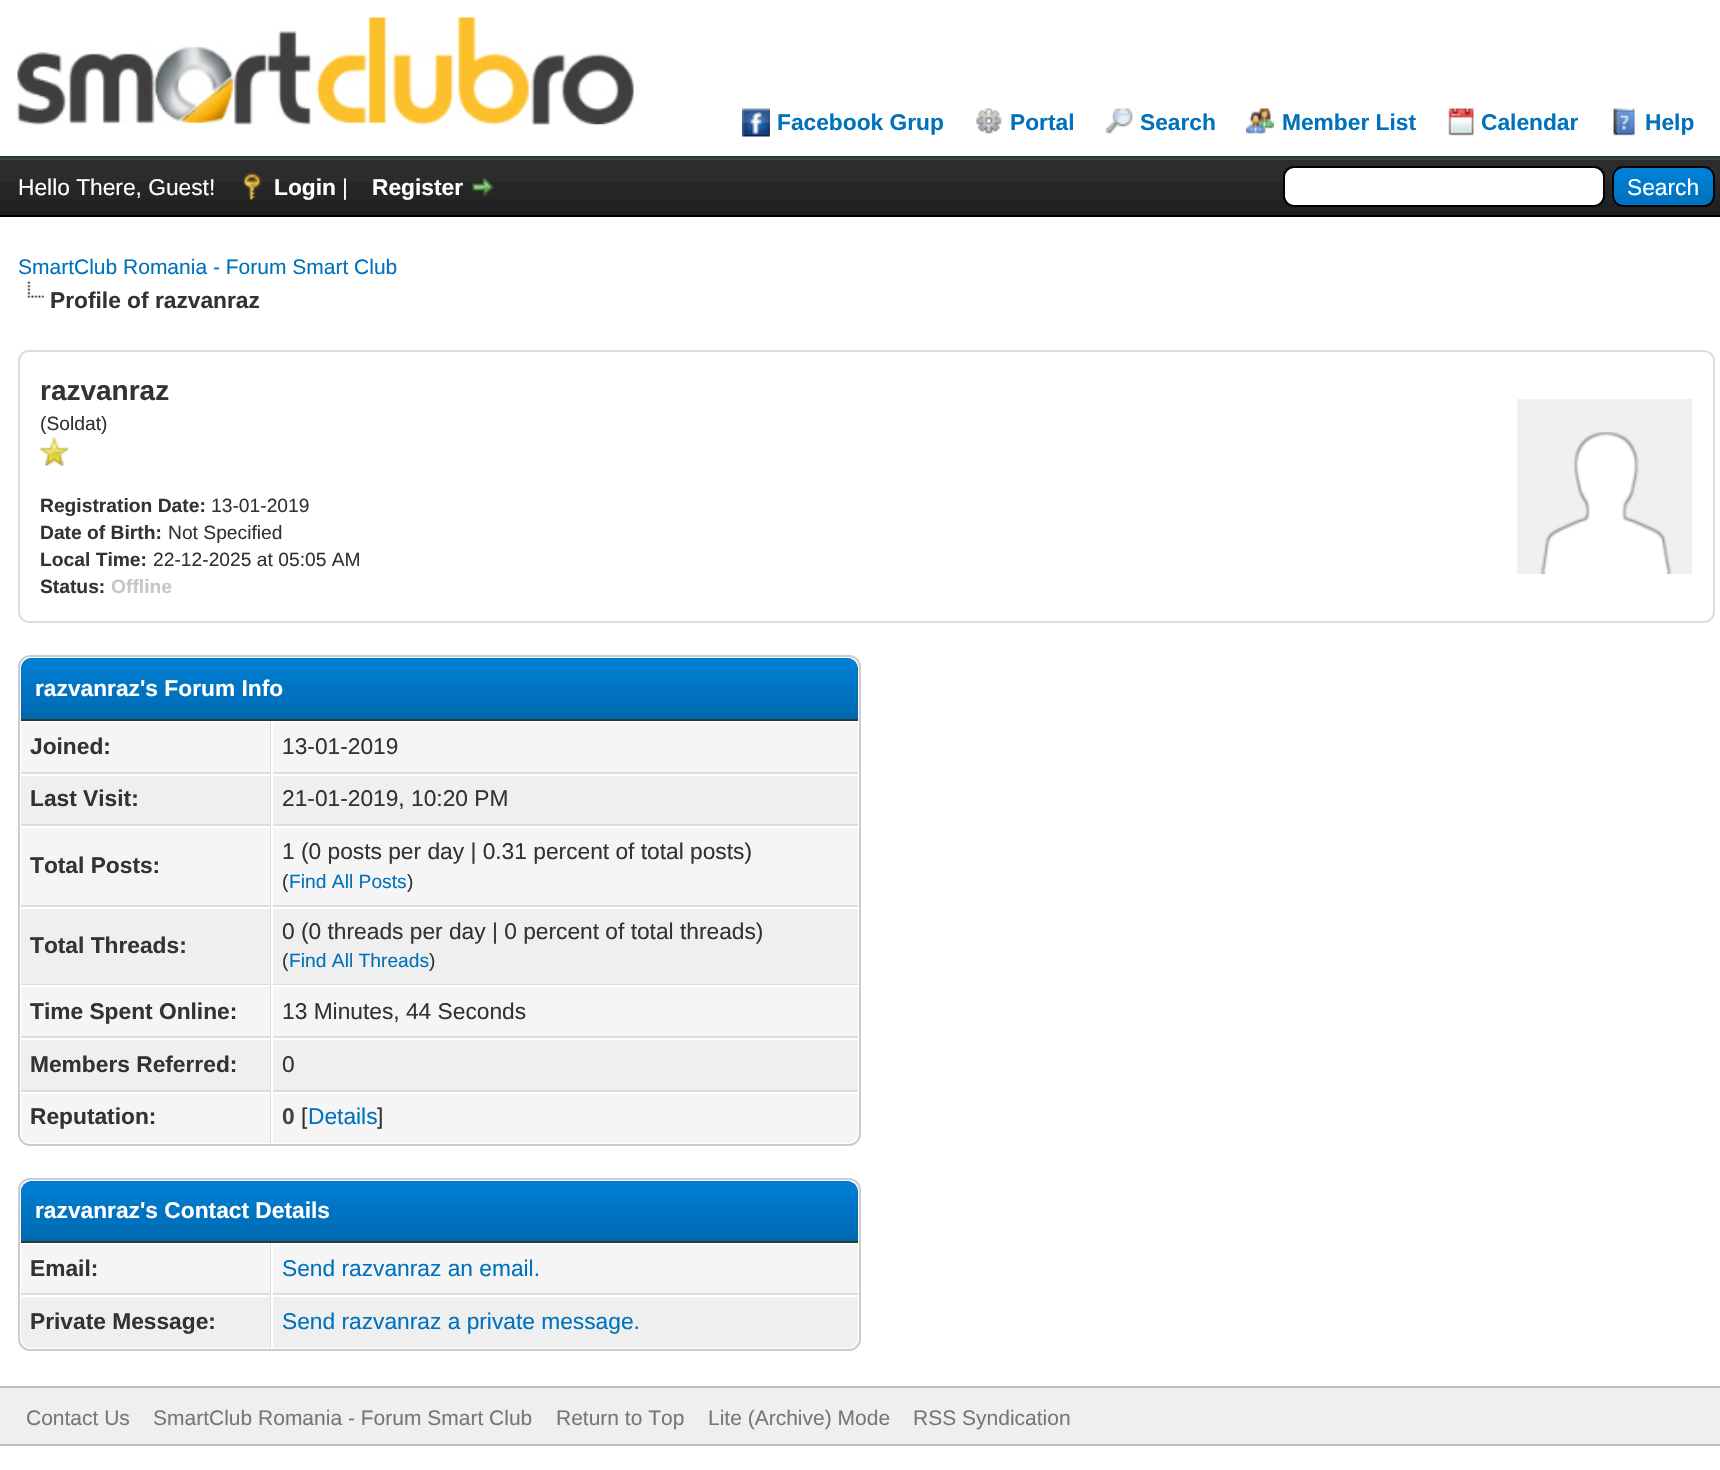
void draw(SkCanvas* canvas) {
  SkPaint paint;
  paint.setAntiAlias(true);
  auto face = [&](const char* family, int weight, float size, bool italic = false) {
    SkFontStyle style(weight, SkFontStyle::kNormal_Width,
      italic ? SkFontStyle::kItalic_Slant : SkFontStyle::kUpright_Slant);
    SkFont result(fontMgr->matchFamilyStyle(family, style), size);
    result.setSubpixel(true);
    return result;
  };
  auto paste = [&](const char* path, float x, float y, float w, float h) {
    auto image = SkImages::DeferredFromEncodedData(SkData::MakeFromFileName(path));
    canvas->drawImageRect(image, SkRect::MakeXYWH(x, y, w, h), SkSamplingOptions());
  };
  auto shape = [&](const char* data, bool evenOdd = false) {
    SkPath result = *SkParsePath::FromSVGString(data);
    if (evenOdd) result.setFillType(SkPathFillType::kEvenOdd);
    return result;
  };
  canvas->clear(0xffffffff);
  paint.setColor(0xff263c30);
  canvas->drawRect(SkRect::MakeXYWH(0, 156, 1720, 2), paint);
  paste("img/1.png", 17, 17, 617, 108);
  paste("img/2.png", 742, 108, 28, 29);
  paste("img/3.png", 976, 108, 26, 26);
  paste("img/4.png", 1105, 108, 28, 26);
  paste("img/5.png", 1246, 108, 28, 26);
  paste("img/6.png", 1448, 108, 26, 28);
  paste("img/7.png", 1613, 108, 22, 28);
  paste("img/8.png", 0, 160, 1720, 55);
  paint.setColor(0xff444444);
  canvas->drawRect(SkRect::MakeXYWH(0, 158, 1720, 2), paint);
  paint.setColor(0xff000000);
  canvas->drawRect(SkRect::MakeXYWH(0, 215, 1720, 2), paint);
  paste("img/9.png", 243, 173, 19, 27);
  paste("img/10.png", 472, 178, 22, 19);
  paint.setColor(0xffffffff);
  canvas->drawRoundRect(SkRect::MakeXYWH(1284, 167, 320, 39), 10, 10, paint);
  paint.setStroke(true);
  paint.setStrokeWidth(2);
  paint.setColor(0xff000000);
  canvas->drawRoundRect(SkRect::MakeXYWH(1284, 167, 320, 39), 10, 10, paint);
  paste("img/11.png", 1611, 168, 104, 39);
  canvas->drawRoundRect(SkRect::MakeXYWH(1613, 167, 101, 39), 10, 10, paint);
  paste("img/12.png", 27, 281, 17, 17);
  paint.setColor(0xffdddddd);
  canvas->drawRoundRect(SkRect::MakeXYWH(19, 351, 1695, 271), 10, 10, paint);
  paste("img/13.png", 40, 437, 29, 29);
  paste("img/14.png", 1517, 399, 176, 175);
  paint.setColor(0xffcccccc);
  canvas->drawRoundRect(SkRect::MakeXYWH(19, 656, 841, 489), 11, 11, paint);
  paint.setStroke(false);
  paint.setColor(0xff0066a2);
  canvas->drawPath(shape("M32 658H847C853 658 858 663 858 669V721H21V669C21 663 26 658 32 658Z"), paint);
  paste("img/15.png", 21, 658, 837, 61);
  {
    const struct { float x, y, w, h; SkColor color; } items[] = {
      {21, 719, 837, 2, 0xff263c30},
      {21, 723, 249, 49, 0xfff5f5f5},
      {270, 721, 1, 371, 0xffdddddd},
      {21, 772, 837, 2, 0xffdddddd},
      {273, 723, 585, 49, 0xfff5f5f5},
      {271, 772, 2, 2, 0xffffffff},
      {21, 776, 249, 48, 0xffefefef},
      {21, 824, 837, 2, 0xffdddddd},
      {273, 776, 585, 48, 0xffefefef},
      {271, 824, 2, 2, 0xffffffff},
      {21, 828, 249, 77, 0xfff5f5f5},
      {21, 905, 837, 2, 0xffdddddd},
      {273, 828, 585, 77, 0xfff5f5f5},
      {271, 905, 2, 2, 0xffffffff},
      {21, 909, 249, 75, 0xffefefef},
      {21, 984, 837, 1, 0xffdddddd},
      {273, 909, 585, 75, 0xffefefef},
      {271, 984, 2, 1, 0xffffffff},
      {21, 987, 249, 49, 0xfff5f5f5},
      {21, 1036, 837, 2, 0xffdddddd},
      {273, 987, 585, 49, 0xfff5f5f5},
      {271, 1036, 2, 2, 0xffffffff},
      {21, 1040, 249, 50, 0xffefefef},
      {21, 1090, 837, 2, 0xffdddddd},
      {273, 1040, 585, 50, 0xffefefef},
      {271, 1090, 2, 2, 0xffffffff},
    };
    for (auto [x, y, w, h, color] : items) {
      paint.setColor(color);
      canvas->drawRect(SkRect::MakeXYWH(x, y, w, h), paint);
    }
  }
  paint.setColor(0xfff5f5f5);
  canvas->drawPath(shape("M21 1092H271V1143H32C26 1143 21 1138 21 1132Z"), paint);
  paint.setColor(0xffffffff);
  canvas->drawPath(shape("M21 1092V1094H269L271 1092Z"), paint);
  paint.setColor(0xffdddddd);
  canvas->drawPath(shape("M270 1143V1094H269L271 1092V1143Z"), paint);
  paint.setColor(0xfff5f5f5);
  canvas->drawPath(shape("M271 1092H858V1132C858 1138 853 1143 847 1143H271Z"), paint);
  paint.setColor(0xffffffff);
  canvas->drawRect(SkRect::MakeXYWH(271, 1092, 587, 2), paint);
  canvas->drawRect(SkRect::MakeXYWH(271, 1092, 2, 51), paint);
  paint.setStroke(true);
  paint.setColor(0xffcccccc);
  canvas->drawRoundRect(SkRect::MakeXYWH(19, 1179, 841, 171), 11, 11, paint);
  paint.setStroke(false);
  paint.setColor(0xff0066a2);
  canvas->drawPath(shape("M32 1181H847C853 1181 858 1186 858 1192V1243H21V1192C21 1186 26 1181 32 1181Z"), paint);
  paste("img/16.png", 21, 1181, 837, 60);
  {
    const struct { float x, y, w, h; SkColor color; } items[] = {
      {21, 1241, 837, 2, 0xff263c30},
      {21, 1245, 249, 48, 0xfff5f5f5},
      {270, 1243, 1, 52, 0xffdddddd},
      {21, 1293, 837, 2, 0xffdddddd},
      {273, 1245, 585, 48, 0xfff5f5f5},
      {271, 1293, 2, 2, 0xffffffff},
    };
    for (auto [x, y, w, h, color] : items) {
      paint.setColor(color);
      canvas->drawRect(SkRect::MakeXYWH(x, y, w, h), paint);
    }
  }
  paint.setColor(0xffefefef);
  canvas->drawPath(shape("M21 1295H271V1348H32C26 1348 21 1343 21 1337Z"), paint);
  paint.setColor(0xffffffff);
  canvas->drawPath(shape("M21 1295V1297H269L271 1295Z"), paint);
  paint.setColor(0xffdddddd);
  canvas->drawPath(shape("M270 1348V1297H269L271 1295V1348Z"), paint);
  paint.setColor(0xffefefef);
  canvas->drawPath(shape("M271 1295H858V1337C858 1343 853 1348 847 1348H271Z"), paint);
  {
    const struct { float x, y, w, h; SkColor color; } items[] = {
      {271, 1295, 587, 2, 0xffffffff},
      {271, 1295, 2, 53, 0xffffffff},
      {0, 1388, 1720, 56, 0xffefefef},
      {0, 1386, 1720, 2, 0xffbbbbbb},
      {0, 1444, 1720, 2, 0xffbbbbbb},
    };
    for (auto [x, y, w, h, color] : items) {
      paint.setColor(color);
      canvas->drawRect(SkRect::MakeXYWH(x, y, w, h), paint);
    }
  }
  auto f0 = face("Liberation Sans", 700, 22.75f);
  paint.setColor(0xff0072bc);
  {
    const struct { const char* s; float x, y; } items[] = {
      {"Facebook Grup", 777, 130},
      {"Portal", 1010, 130},
      {"Search", 1140, 130},
      {"Member List", 1282, 130},
      {"Calendar", 1481, 130},
      {"Help", 1645, 130},
    };
    for (auto [s, x, y] : items) {
      canvas->drawString(s, x, y, f0, paint);
    }
  }
  auto f1 = face("Liberation Sans", 400, 22.75f);
  paint.setColor(0xffffffff);
  canvas->drawString("Hello There, Guest!", 18, 195, f1, paint);
  canvas->drawString("Login", 274, 195, f0, paint);
  canvas->drawString("|", 342, 195, f1, paint);
  canvas->drawString("Register", 372, 195, f0, paint);
  canvas->drawString("Search", 1627, 195, f1, paint);
  auto f2 = face("Liberation Sans", 400, 21);
  paint.setColor(0xff0072bc);
  canvas->drawString("SmartClub Romania - Forum Smart Club", 18, 274, f2, paint);
  paint.setColor(0xff333333);
  canvas->drawString("Profile of razvanraz", 50, 308, f0, paint);
  auto f3 = face("Liberation Sans", 700, 28);
  canvas->drawString("razvanraz", 40, 400, f3, paint);
  auto f4 = face("Liberation Sans", 400, 19.25f);
  canvas->drawString("(Soldat)", 40, 430, f4, paint);
  auto f5 = face("Liberation Sans", 700, 19.25f);
  canvas->drawString("Registration Date:", 40, 512, f5, paint);
  canvas->drawString("13-01-2019", 211, 512, f4, paint);
  canvas->drawString("Date of Birth:", 40, 539, f5, paint);
  canvas->drawString("Not Specified", 168, 539, f4, paint);
  canvas->drawString("Local Time:", 40, 566, f5, paint);
  canvas->drawString("22-12-2025 at 05:05 AM", 153, 566, f4, paint);
  canvas->drawString("Status:", 40, 593, f5, paint);
  paint.setColor(0xffc7c7c7);
  canvas->drawString("Offline", 111, 593, f5, paint);
  paint.setColor(0xffffffff);
  canvas->drawString("razvanraz's Forum Info", 35, 696, f0, paint);
  paint.setColor(0xff333333);
  canvas->drawString("Joined:", 30, 754, f0, paint);
  canvas->drawString("13-01-2019", 282, 754, f1, paint);
  canvas->drawString("Last Visit:", 30, 806, f0, paint);
  canvas->drawString("21-01-2019, 10:20 PM", 282, 806, f1, paint);
  canvas->drawString("Total Posts:", 30, 873, f0, paint);
  canvas->drawString("1 (0 posts per day | 0.31 percent of total posts)", 282, 859, f1, paint);
  canvas->drawString("(", 282, 888, f4, paint);
  paint.setColor(0xff0072bc);
  canvas->drawString("Find All Posts", 289, 888, f4, paint);
  paint.setColor(0xff333333);
  canvas->drawString(")", 407, 888, f4, paint);
  canvas->drawString("Total Threads:", 30, 953, f0, paint);
  canvas->drawString("0 (0 threads per day | 0 percent of total threads)", 282, 939, f1, paint);
  canvas->drawString("(", 282, 967, f4, paint);
  paint.setColor(0xff0072bc);
  canvas->drawString("Find All Threads", 289, 967, f4, paint);
  paint.setColor(0xff333333);
  canvas->drawString(")", 429, 967, f4, paint);
  canvas->drawString("Time Spent Online:", 30, 1019, f0, paint);
  canvas->drawString("13 Minutes, 44 Seconds", 282, 1019, f1, paint);
  canvas->drawString("Members Referred:", 30, 1072, f0, paint);
  canvas->drawString("0", 282, 1072, f1, paint);
  canvas->drawString("Reputation:", 30, 1124, f0, paint);
  paint.setColor(0xff444444);
  canvas->drawString("0", 282, 1124, f0, paint);
  paint.setColor(0xff333333);
  canvas->drawString("[", 301, 1124, f1, paint);
  paint.setColor(0xff0072bc);
  canvas->drawString("Details", 308, 1124, f1, paint);
  paint.setColor(0xff333333);
  canvas->drawString("]", 377, 1124, f1, paint);
  paint.setColor(0xffffffff);
  canvas->drawString("razvanraz's Contact Details", 35, 1218, f0, paint);
  paint.setColor(0xff333333);
  canvas->drawString("Email:", 30, 1276, f0, paint);
  paint.setColor(0xff0072bc);
  canvas->drawString("Send razvanraz an email.", 282, 1276, f1, paint);
  paint.setColor(0xff333333);
  canvas->drawString("Private Message:", 30, 1329, f0, paint);
  paint.setColor(0xff0072bc);
  canvas->drawString("Send razvanraz a private message.", 282, 1329, f1, paint);
  paint.setColor(0xff777777);
  {
    const struct { const char* s; float x, y; } items[] = {
      {"Contact Us", 26, 1425},
      {"SmartClub Romania - Forum Smart Club", 153, 1425},
      {"Return to Top", 556, 1425},
      {"Lite (Archive) Mode", 708, 1425},
      {"RSS Syndication", 913, 1425},
    };
    for (auto [s, x, y] : items) {
      canvas->drawString(s, x, y, f2, paint);
    }
  }
}
